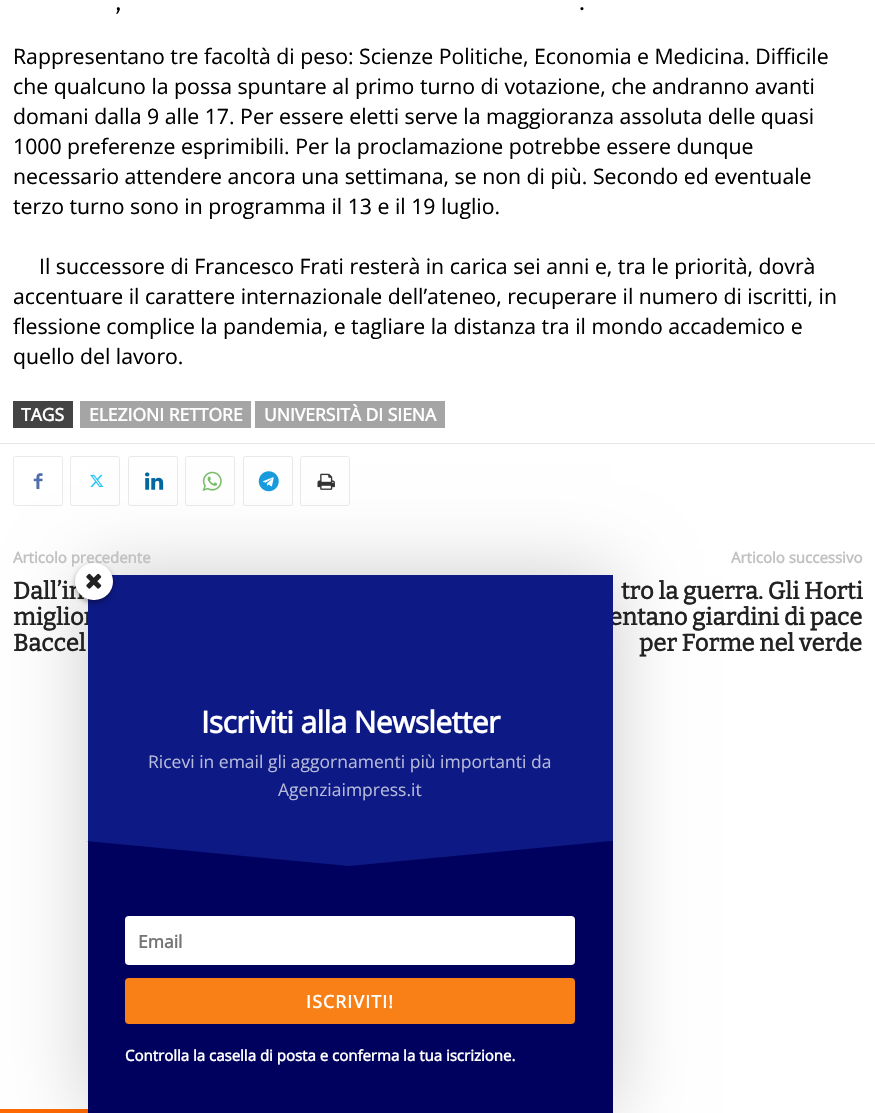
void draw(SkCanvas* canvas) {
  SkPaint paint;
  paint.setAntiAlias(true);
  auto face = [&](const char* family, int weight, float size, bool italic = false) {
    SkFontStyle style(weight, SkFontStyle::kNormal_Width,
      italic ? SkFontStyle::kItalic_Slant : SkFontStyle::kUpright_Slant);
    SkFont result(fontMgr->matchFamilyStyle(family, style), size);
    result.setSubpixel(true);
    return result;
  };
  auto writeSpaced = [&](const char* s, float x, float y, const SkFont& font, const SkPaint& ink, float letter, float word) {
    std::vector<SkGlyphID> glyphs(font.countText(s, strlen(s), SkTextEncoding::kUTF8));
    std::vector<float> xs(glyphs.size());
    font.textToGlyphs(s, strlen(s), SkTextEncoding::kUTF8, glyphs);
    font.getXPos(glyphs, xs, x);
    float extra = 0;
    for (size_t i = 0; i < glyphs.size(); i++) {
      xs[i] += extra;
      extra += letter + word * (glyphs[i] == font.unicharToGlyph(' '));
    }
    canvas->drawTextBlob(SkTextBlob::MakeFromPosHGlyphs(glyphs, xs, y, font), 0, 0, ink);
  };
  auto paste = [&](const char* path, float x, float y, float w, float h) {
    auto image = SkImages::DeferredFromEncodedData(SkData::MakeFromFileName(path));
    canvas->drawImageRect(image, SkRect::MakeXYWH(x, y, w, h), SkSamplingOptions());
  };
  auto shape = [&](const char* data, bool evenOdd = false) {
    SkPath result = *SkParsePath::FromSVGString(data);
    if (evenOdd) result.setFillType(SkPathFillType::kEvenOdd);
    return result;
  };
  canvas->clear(0xffffffff);
  {
    const struct { float x, y, w, h; SkColor color; } items[] = {
      {13, 401, 60, 27, 0xff444444},
      {80, 401, 171, 27, 0xffa5a5a5},
      {255, 401, 190, 27, 0xffa5a5a5},
      {0, 443, 875, 1, 0xffe6e6e6},
    };
    for (auto [x, y, w, h, color] : items) {
      paint.setColor(color);
      canvas->drawRect(SkRect::MakeXYWH(x, y, w, h), paint);
    }
  }
  paint.setStroke(true);
  paint.setStrokeWidth(1);
  paint.setColor(0xffe9e9e9);
  canvas->drawRoundRect(SkRect::MakeXYWH(13.5f, 456.5f, 49, 49), 2, 2, paint);
  paste("img/1.png", 33, 473, 10, 16);
  canvas->drawRoundRect(SkRect::MakeXYWH(70.5f, 456.5f, 49, 49), 2, 2, paint);
  paste("img/2.png", 90, 474, 14, 13);
  canvas->drawRoundRect(SkRect::MakeXYWH(128.5f, 456.5f, 49, 49), 2, 2, paint);
  paste("img/3.png", 145, 472, 19, 18);
  canvas->drawRoundRect(SkRect::MakeXYWH(185.5f, 456.5f, 49, 49), 2, 2, paint);
  paste("img/4.png", 202, 471, 20, 20);
  canvas->drawRoundRect(SkRect::MakeXYWH(243.5f, 456.5f, 49, 49), 2, 2, paint);
  paste("img/5.png", 258, 471, 21, 21);
  canvas->drawRoundRect(SkRect::MakeXYWH(300.5f, 456.5f, 49, 49), 2, 2, paint);
  paste("img/6.png", 317, 473, 18, 17);
  paint.setStroke(false);
  paint.setColor(0xffff6900);
  canvas->drawRect(SkRect::MakeXYWH(0, 1109, 88, 4), paint);
  paint.setColor(0x33000000);
  paint.setMaskFilter(SkMaskFilter::MakeBlur(kNormal_SkBlurStyle, 37.5f));
  canvas->drawRect(SkRect::MakeXYWH(88, 575, 525, 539), paint);
  paint.setMaskFilter(nullptr);
  paint.setColor(0xff00005e);
  canvas->drawRect(SkRect::MakeXYWH(88, 841, 525, 272), paint);
  paint.setColor(0xff0d1984);
  canvas->drawPath(shape("M86 841L349 866L611 841Z"), paint);
  paint.setColor(0xffffffff);
  canvas->drawRoundRect(SkRect::MakeXYWH(125, 916, 450, 49), 4, 4, paint);
  paint.setColor(0xfff97f17);
  canvas->drawRoundRect(SkRect::MakeXYWH(125, 978, 450, 46), 4, 4, paint);
  auto f0 = face("Bitter", 100, 28);
  paint.setColor(0xff000000);
  canvas->drawString(",", 115, 10, f0, paint);
  canvas->drawString(".", 579, 10, f0, paint);
  auto f1 = face("Open Sans", 400, 21.25f);
  {
    const struct { const char* s; float x, y; } items[] = {
      {"Rappresentano tre facoltà di peso: Scienze Politiche, Economia e Medicina. Difficile", 13, 64},
      {"che qualcuno la possa spuntare al primo turno di votazione, che andranno avanti", 13, 94},
      {"domani dalla 9 alle 17. Per essere eletti serve la maggioranza assoluta delle quasi", 13, 124},
      {"1000 preferenze esprimibili. Per la proclamazione potrebbe essere dunque", 13, 154},
      {"necessario attendere ancora una settimana, se non di più. Secondo ed eventuale", 13, 184},
      {"terzo turno sono in programma il 13 e il 19 luglio.", 13, 214},
      {"Il successore di Francesco Frati resterà in carica sei anni e, tra le priorità, dovrà", 39, 274},
      {"accentuare il carattere internazionale dell’ateneo, recuperare il numero di iscritti, in", 13, 304},
      {"flessione complice la pandemia, e tagliare la distanza tra il mondo accademico e", 13, 334},
      {"quello del lavoro.", 13, 364},
    };
    for (auto [s, x, y] : items) {
      canvas->drawString(s, x, y, f1, paint);
    }
  }
  auto f2 = face("Open Sans", 700, 17.5f);
  paint.setColor(0xffffffff);
  {
    const struct { const char* s; float x, y; } items[] = {
      {"TAGS", 21, 421},
      {"ELEZIONI RETTORE", 89, 421},
      {"UNIVERSITÀ DI SIENA", 264, 421},
    };
    for (auto [s, x, y] : items) {
      canvas->drawString(s, x, y, f2, paint);
    }
  }
  auto f3 = face("Open Sans", 700, 15);
  paint.setColor(0xffc1c1c1);
  canvas->drawString("Articolo precedente", 13, 563, f3, paint);
  auto f4 = face("Bitter", 700, 23.75f);
  paint.setColor(0xff222222);
  {
    const struct { const char* s; float x, y; } items[] = {
      {"Dall’in", 13, 599},
      {"miglior", 13, 625},
      {"Baccel", 13, 651},
    };
    for (auto [s, x, y] : items) {
      canvas->drawString(s, x, y, f4, paint);
    }
  }
  paint.setColor(0xffc1c1c1);
  canvas->drawString("Articolo successivo", 731, 563, f3, paint);
  paint.setColor(0xff222222);
  {
    const struct { const char* s; float x, y; } items[] = {
      {"tro la guerra. Gli Horti", 621, 599},
      {"entano giardini di pace", 609, 625},
      {"per Forme nel verde", 639, 651},
    };
    for (auto [s, x, y] : items) {
      canvas->drawString(s, x, y, f4, paint);
    }
  }
  paint.setColor(0xff0d1984);
  canvas->drawRect(SkRect::MakeXYWH(88, 575, 525, 266), paint);
  paint.setColor(0x57000000);
  paint.setMaskFilter(SkMaskFilter::MakeBlur(kNormal_SkBlurStyle, 2.5f));
  canvas->drawRoundRect(SkRect::MakeXYWH(75, 565, 38, 38), 19, 19, paint);
  paint.setMaskFilter(nullptr);
  paint.setColor(0xffffffff);
  canvas->drawRoundRect(SkRect::MakeXYWH(75, 563, 38, 37), 18.5f, 18.5f, paint);
  paste("img/7.png", 86, 573, 16, 16);
  auto f5 = face("Open Sans", 700, 30);
  writeSpaced("Iscriviti alla Newsletter", 201, 733, f5, paint, -0.6f, 0);
  auto f6 = face("Open Sans", 400, 17.5f);
  paint.setColor(0xffb6bada);
  canvas->drawString("Ricevi in email gli aggornamenti più importanti da", 148, 768, f6, paint);
  canvas->drawString("Agenziaimpress.it", 278, 796, f6, paint);
  paint.setColor(0xff757575);
  canvas->drawString("Email", 138, 948, f2, paint);
  paint.setColor(0xffffffff);
  writeSpaced("ISCRIVITI!", 306, 1008, f2, paint, 1.25f, 0);
  canvas->drawString("Controlla la casella di posta e conferma la tua iscrizione.", 125, 1061, f3, paint);
}
